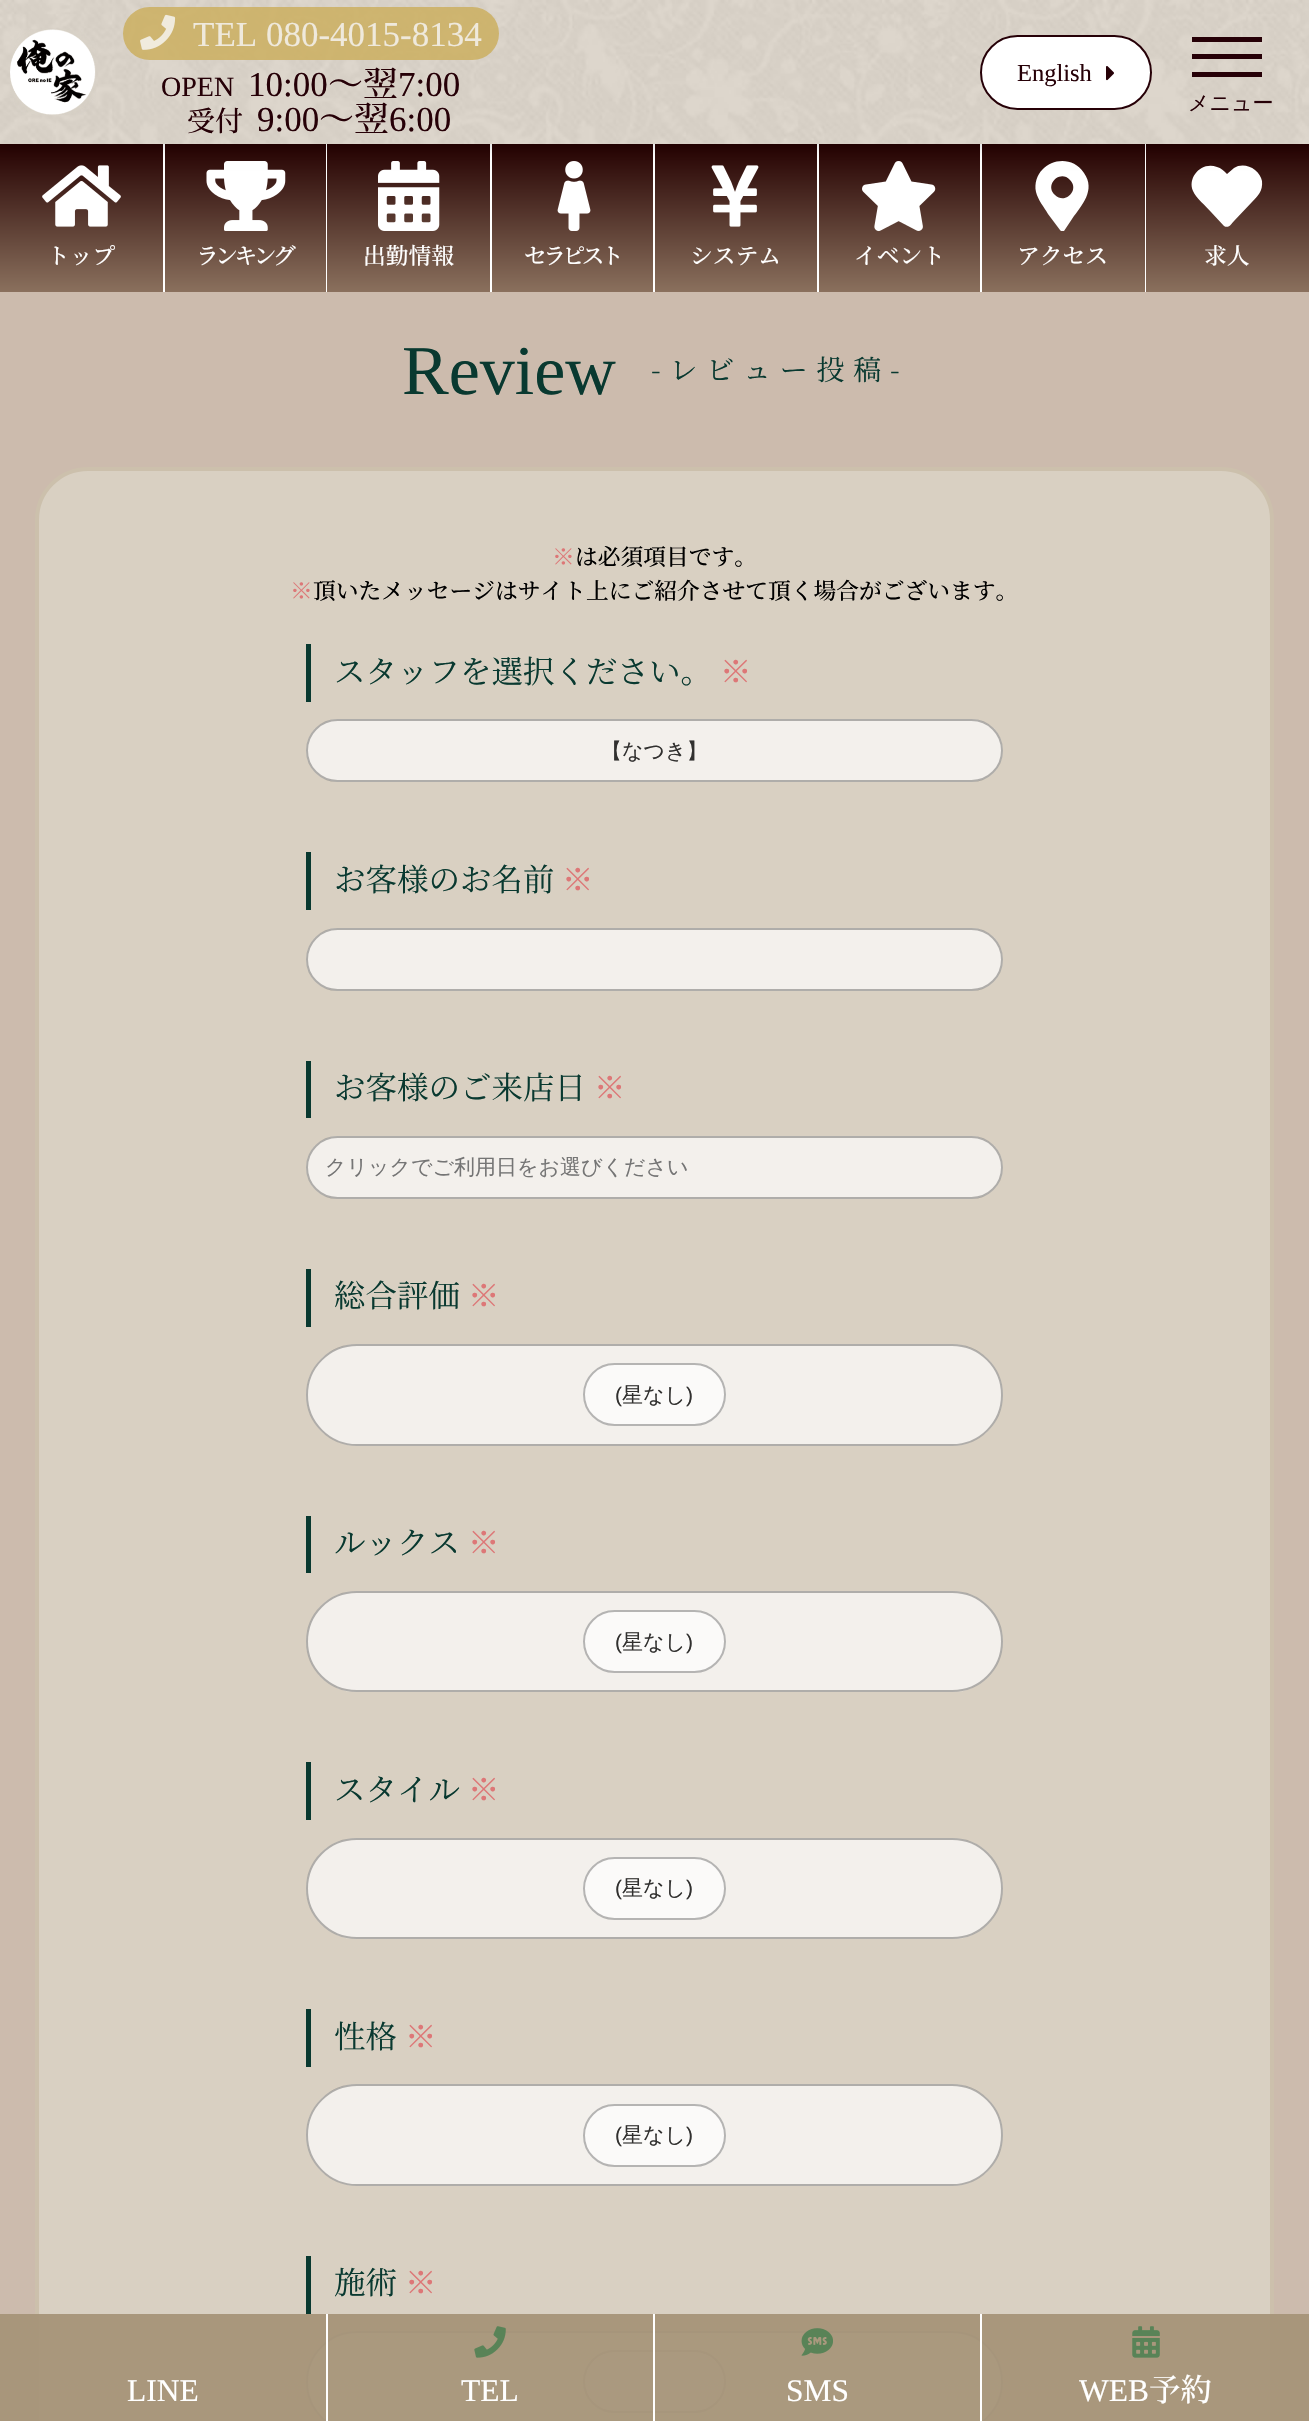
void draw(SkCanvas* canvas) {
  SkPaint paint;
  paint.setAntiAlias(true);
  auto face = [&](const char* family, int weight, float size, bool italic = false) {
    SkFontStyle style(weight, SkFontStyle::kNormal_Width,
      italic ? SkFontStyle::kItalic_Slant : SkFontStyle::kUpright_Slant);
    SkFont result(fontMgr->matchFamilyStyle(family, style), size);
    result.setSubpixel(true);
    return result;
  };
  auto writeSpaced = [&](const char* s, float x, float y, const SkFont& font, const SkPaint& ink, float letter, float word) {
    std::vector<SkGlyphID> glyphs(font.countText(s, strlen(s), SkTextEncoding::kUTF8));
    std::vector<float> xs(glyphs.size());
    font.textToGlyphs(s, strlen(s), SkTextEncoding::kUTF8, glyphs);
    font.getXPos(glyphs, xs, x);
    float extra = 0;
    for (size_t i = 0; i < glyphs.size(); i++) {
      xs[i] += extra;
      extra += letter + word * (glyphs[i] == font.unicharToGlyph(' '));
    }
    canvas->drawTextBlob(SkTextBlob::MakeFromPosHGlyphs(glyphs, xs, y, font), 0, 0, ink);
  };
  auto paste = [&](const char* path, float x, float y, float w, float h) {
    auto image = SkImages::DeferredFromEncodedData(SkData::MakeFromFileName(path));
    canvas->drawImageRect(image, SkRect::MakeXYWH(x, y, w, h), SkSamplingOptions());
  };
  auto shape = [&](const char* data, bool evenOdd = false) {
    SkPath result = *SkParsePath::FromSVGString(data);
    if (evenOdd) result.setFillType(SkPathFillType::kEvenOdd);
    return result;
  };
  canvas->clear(0xffccbbad);
  paste("img/1.png", 0, 0, 1309, 144);
  {
    const SkColor colors[] = {0xff240000, 0xff8a705d};
    const float stops[] = {0, 1};
    const SkPoint ends[] = {{655, 143}, {655, 292}};
    paint.setShader(SkGradientShader::MakeLinear(ends, colors, stops, 2, SkTileMode::kClamp));
    paint.setAlpha(255);
  }
  canvas->drawRect(SkRect::MakeXYWH(0, 144, 1145, 148), paint);
  paint.setShader(nullptr);
  paint.setColor(0xffffffff);
  canvas->drawRect(SkRect::MakeXYWH(163, 144, 2, 148), paint);
  paste("img/5.png", 42, 165, 79, 62);
  canvas->drawRect(SkRect::MakeXYWH(326, 144, 1, 148), paint);
  paste("img/6.png", 206, 161, 80, 70);
  canvas->drawRect(SkRect::MakeXYWH(490, 144, 2, 148), paint);
  paste("img/7.png", 378, 161, 62, 70);
  canvas->drawRect(SkRect::MakeXYWH(653, 144, 2, 148), paint);
  paste("img/8.png", 557, 161, 34, 70);
  canvas->drawRect(SkRect::MakeXYWH(817, 144, 2, 148), paint);
  paste("img/9.png", 711, 165, 48, 62);
  canvas->drawRect(SkRect::MakeXYWH(980, 144, 2, 148), paint);
  paste("img/10.png", 862, 161, 74, 71);
  canvas->drawRect(SkRect::MakeXYWH(1145, 144, 1, 148), paint);
  canvas->drawPath(shape("M1060 230L1048 214C1044 207 1038 200 1036 192C1031 164 1068 149 1084 173C1096 190 1082 205 1072 219L1064 231C1062 231 1060 231 1060 230ZM1055 195C1065 205 1080 190 1070 180C1060 169 1044 185 1055 195Z"), paint);
  {
    const SkColor colors[] = {0xff240000, 0xff8a705d};
    const float stops[] = {0, 1};
    const SkPoint ends[] = {{1228, 144}, {1228, 292}};
    paint.setShader(SkGradientShader::MakeLinear(ends, colors, stops, 2, SkTileMode::kClamp));
    paint.setAlpha(255);
  }
  canvas->drawRect(SkRect::MakeXYWH(1146, 144, 163, 148), paint);
  paint.setShader(nullptr);
  paint.setColor(0xffffffff);
  canvas->drawPath(shape("M1255 170C1259 173 1261 177 1262 181C1263 191 1258 196 1252 202L1234 221C1232 223 1229 229 1224 226L1211 212C1206 206 1196 198 1193 191C1187 177 1202 161 1217 167C1221 168 1224 171 1227 174L1234 168C1240 164 1249 165 1255 170Z"), paint);
  canvas->save();
  canvas->clipPath(shape("M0 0H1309V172H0ZM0 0H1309V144H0Z", true), true);
  paint.setColor(0x33000000);
  paint.setMaskFilter(SkMaskFilter::MakeBlur(kNormal_SkBlurStyle, 9));
  canvas->drawRect(SkRect::MakeXYWH(0, 0, 1309, 144), paint);
  paint.setMaskFilter(nullptr);
  canvas->restore();
  paste("img/2.png", 10, 29, 86, 86);
  paint.setColor(0xcccaac59);
  canvas->drawRoundRect(SkRect::MakeXYWH(123, 7, 376, 53), 26.5f, 26.5f, paint);
  paste("img/3.png", 140, 14, 36, 36);
  {
    const struct { float x, y, w, h; SkColor color; } items[] = {
      {1192, 54, 70, 5, 0xff260007},
      {1192, 37, 70, 5, 0xff260007},
      {1192, 72, 70, 5, 0xff260007},
    };
    for (auto [x, y, w, h, color] : items) {
      paint.setColor(color);
      canvas->drawRect(SkRect::MakeXYWH(x, y, w, h), paint);
    }
  }
  paint.setColor(0xffffffff);
  canvas->drawRoundRect(SkRect::MakeXYWH(981, 36, 170, 73), 36.5f, 36.5f, paint);
  paint.setStroke(true);
  paint.setStrokeWidth(2);
  paint.setColor(0xff260007);
  canvas->drawRoundRect(SkRect::MakeXYWH(981, 36, 170, 73), 36.5f, 36.5f, paint);
  paste("img/4.png", 1106, 66, 8, 15);
  paint.setStroke(false);
  paint.setColor(0xffd9d0c2);
  canvas->drawRoundRect(SkRect::MakeXYWH(37, 469, 1235, 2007), 51, 51, paint);
  paint.setStroke(true);
  paint.setStrokeWidth(4);
  paint.setColor(0xffccc0ac);
  canvas->drawRoundRect(SkRect::MakeXYWH(37, 469, 1235, 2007), 51, 51, paint);
  paint.setStroke(false);
  paint.setColor(0xff093930);
  canvas->drawRect(SkRect::MakeXYWH(306, 644, 5, 58), paint);
  paint.setColor(0xfff3f0ec);
  canvas->drawRoundRect(SkRect::MakeXYWH(306, 719, 697, 63), 31.5f, 31.5f, paint);
  paint.setStroke(true);
  paint.setStrokeWidth(2);
  paint.setColor(0x47000000);
  canvas->drawRoundRect(SkRect::MakeXYWH(307, 720, 695, 61), 30.5f, 30.5f, paint);
  paint.setStroke(false);
  paint.setColor(0xff093930);
  canvas->drawRect(SkRect::MakeXYWH(306, 852, 5, 58), paint);
  paint.setColor(0xfff3f0ec);
  canvas->drawRoundRect(SkRect::MakeXYWH(306, 928, 697, 63), 31.5f, 31.5f, paint);
  paint.setStroke(true);
  paint.setColor(0x47000000);
  canvas->drawRoundRect(SkRect::MakeXYWH(307, 929, 695, 61), 30.5f, 30.5f, paint);
  paint.setStroke(false);
  paint.setColor(0xff093930);
  canvas->drawRect(SkRect::MakeXYWH(306, 1061, 5, 57), paint);
  paint.setColor(0xfff3f0ec);
  canvas->drawRoundRect(SkRect::MakeXYWH(306, 1136, 697, 63), 31.5f, 31.5f, paint);
  paint.setStroke(true);
  paint.setColor(0x47000000);
  canvas->drawRoundRect(SkRect::MakeXYWH(307, 1137, 695, 61), 30.5f, 30.5f, paint);
  paint.setStroke(false);
  paint.setColor(0xff093930);
  canvas->drawRect(SkRect::MakeXYWH(306, 1269, 5, 58), paint);
  paint.setColor(0xfff3f0ec);
  canvas->drawRoundRect(SkRect::MakeXYWH(306, 1344, 697, 102), 51, 51, paint);
  paint.setStroke(true);
  paint.setColor(0x47000000);
  canvas->drawRoundRect(SkRect::MakeXYWH(307, 1345, 695, 100), 50, 50, paint);
  paint.setStroke(false);
  paint.setColor(0xfffbfaf9);
  canvas->drawRoundRect(SkRect::MakeXYWH(583, 1363, 143, 63), 31.5f, 31.5f, paint);
  paint.setStroke(true);
  paint.setColor(0x47000000);
  canvas->drawRoundRect(SkRect::MakeXYWH(584, 1364, 141, 61), 30.5f, 30.5f, paint);
  paint.setStroke(false);
  paint.setColor(0xff093930);
  canvas->drawRect(SkRect::MakeXYWH(306, 1516, 5, 57), paint);
  paint.setColor(0xfff3f0ec);
  canvas->drawRoundRect(SkRect::MakeXYWH(306, 1591, 697, 101), 50.5f, 50.5f, paint);
  paint.setStroke(true);
  paint.setColor(0x47000000);
  canvas->drawRoundRect(SkRect::MakeXYWH(307, 1592, 695, 99), 49.5f, 49.5f, paint);
  paint.setStroke(false);
  paint.setColor(0xfffbfaf9);
  canvas->drawRoundRect(SkRect::MakeXYWH(583, 1610, 143, 63), 31.5f, 31.5f, paint);
  paint.setStroke(true);
  paint.setColor(0x47000000);
  canvas->drawRoundRect(SkRect::MakeXYWH(584, 1611, 141, 61), 30.5f, 30.5f, paint);
  paint.setStroke(false);
  paint.setColor(0xff093930);
  canvas->drawRect(SkRect::MakeXYWH(306, 1762, 5, 58), paint);
  paint.setColor(0xfff3f0ec);
  canvas->drawRoundRect(SkRect::MakeXYWH(306, 1838, 697, 101), 50.5f, 50.5f, paint);
  paint.setStroke(true);
  paint.setColor(0x47000000);
  canvas->drawRoundRect(SkRect::MakeXYWH(307, 1839, 695, 99), 49.5f, 49.5f, paint);
  paint.setStroke(false);
  paint.setColor(0xfffbfaf9);
  canvas->drawRoundRect(SkRect::MakeXYWH(583, 1857, 143, 63), 31.5f, 31.5f, paint);
  paint.setStroke(true);
  paint.setColor(0x47000000);
  canvas->drawRoundRect(SkRect::MakeXYWH(584, 1858, 141, 61), 30.5f, 30.5f, paint);
  paint.setStroke(false);
  paint.setColor(0xff093930);
  canvas->drawRect(SkRect::MakeXYWH(306, 2009, 5, 58), paint);
  paint.setColor(0xfff3f0ec);
  canvas->drawRoundRect(SkRect::MakeXYWH(306, 2084, 697, 102), 51, 51, paint);
  paint.setStroke(true);
  paint.setColor(0x47000000);
  canvas->drawRoundRect(SkRect::MakeXYWH(307, 2085, 695, 100), 50, 50, paint);
  paint.setStroke(false);
  paint.setColor(0xfffbfaf9);
  canvas->drawRoundRect(SkRect::MakeXYWH(583, 2104, 143, 63), 31.5f, 31.5f, paint);
  paint.setStroke(true);
  paint.setColor(0x47000000);
  canvas->drawRoundRect(SkRect::MakeXYWH(584, 2105, 141, 61), 30.5f, 30.5f, paint);
  paint.setStroke(false);
  paint.setColor(0xff093930);
  canvas->drawRect(SkRect::MakeXYWH(306, 2256, 5, 58), paint);
  paint.setColor(0xfff3f0ec);
  canvas->drawRoundRect(SkRect::MakeXYWH(306, 2331, 697, 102), 51, 51, paint);
  paint.setStroke(true);
  paint.setColor(0x47000000);
  canvas->drawRoundRect(SkRect::MakeXYWH(307, 2332, 695, 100), 50, 50, paint);
  paint.setStroke(false);
  paint.setColor(0xfffbfaf9);
  canvas->drawRoundRect(SkRect::MakeXYWH(583, 2350, 143, 63), 31.5f, 31.5f, paint);
  paint.setStroke(true);
  paint.setColor(0x47000000);
  canvas->drawRoundRect(SkRect::MakeXYWH(584, 2351, 141, 61), 30.5f, 30.5f, paint);
  paint.setStroke(false);
  {
    const struct { float x, y, w, h; SkColor color; } items[] = {
      {0, 2314, 1309, 107, 0xf2a59478},
      {326, 2314, 2, 107, 0xffffffff},
      {653, 2314, 2, 107, 0xffffffff},
    };
    for (auto [x, y, w, h, color] : items) {
      paint.setColor(color);
      canvas->drawRect(SkRect::MakeXYWH(x, y, w, h), paint);
    }
  }
  paste("img/11.png", 474, 2326, 32, 32);
  canvas->drawRect(SkRect::MakeXYWH(980, 2314, 2, 107), paint);
  paste("img/12.png", 801, 2328, 32, 28);
  paste("img/13.png", 1132, 2326, 28, 32);
  auto f0 = face("Liberation Serif", 400, 35);
  paint.setColor(0xffefe9dc);
  canvas->drawString("TEL 080-4015-8134", 193, 46, f0, paint);
  auto f1 = face("Liberation Serif", 400, 28);
  paint.setColor(0xff260007);
  canvas->drawString("OPEN", 161, 96, f1, paint);
  canvas->drawString("10:00", 248, 96, f0, paint);
  auto f2 = face("Noto Serif JP", 500, 35);
  canvas->drawString("～翌", 328, 96, f2, paint);
  canvas->drawString("7:00", 398, 96, f0, paint);
  auto f3 = face("Noto Serif JP", 500, 28);
  canvas->drawString("受付", 187, 131, f3, paint);
  canvas->drawString("9:00", 257, 131, f0, paint);
  canvas->drawString("～翌", 319, 131, f2, paint);
  canvas->drawString("6:00", 389, 131, f0, paint);
  auto f4 = face("WenQuanYi Zen Hei", 500, 21);
  canvas->drawString("メニュー", 1188, 110, f4, paint);
  auto f5 = face("Liberation Serif", 400, 24.5f);
  canvas->drawString("English", 1017, 81, f5, paint);
  auto f6 = face("Noto Serif JP", 500, 22.75f);
  paint.setColor(0xffffffff);
  canvas->drawString("トップ", 47, 264, f6, paint);
  writeSpaced("ランキング", 196, 264, f6, paint, -3.5f, 0);
  canvas->drawString("出勤情報", 363, 264, f6, paint);
  writeSpaced("セラピスト", 524, 264, f6, paint, -3.5f, 0);
  {
    const struct { const char* s; float x, y; } items[] = {
      {"システム", 690, 264},
      {"イベント", 854, 264},
      {"アクセス", 1017, 264},
      {"求人", 1204, 264},
    };
    for (auto [s, x, y] : items) {
      canvas->drawString(s, x, y, f6, paint);
    }
  }
  auto f7 = face("Liberation Serif", 400, 70);
  paint.setColor(0xff093930);
  canvas->drawString("Review", 402, 394, f7, paint);
  auto f8 = face("Noto Serif JP", 400, 28);
  writeSpaced("-レビュー投稿-", 651, 380, f8, paint, 8.75f, 0);
  auto f9 = face("Noto Serif JP", 700, 22.75f);
  paint.setColor(0xffdd7777);
  canvas->drawString("※", 552, 565, f9, paint);
  paint.setColor(0xff000000);
  canvas->drawString("は必須項目です。", 575, 565, f6, paint);
  paint.setColor(0xffdd7777);
  canvas->drawString("※", 290, 599, f9, paint);
  paint.setColor(0xff000000);
  canvas->drawString("頂いたメッセージはサイト上にご紹介させて頂く場合がございます。", 313, 599, f6, paint);
  auto f10 = face("Noto Serif JP", 400, 31.5f);
  paint.setColor(0xff093930);
  canvas->drawString("スタッフを選択ください。", 334, 683, f10, paint);
  auto f11 = face("Noto Serif JP", 700, 31.5f);
  paint.setColor(0xffdd7777);
  canvas->drawString("※", 720, 683, f11, paint);
  paint.setColor(0xff31302f);
  canvas->drawString("【なつき】", 601, 758, f4, paint);
  paint.setColor(0xff093930);
  canvas->drawString("お客様のお名前", 334, 891, f10, paint);
  paint.setColor(0xffdd7777);
  canvas->drawString("※", 562, 891, f11, paint);
  paint.setColor(0xff093930);
  canvas->drawString("お客様のご来店日", 334, 1099, f10, paint);
  paint.setColor(0xffdd7777);
  canvas->drawString("※", 594, 1099, f11, paint);
  paint.setColor(0xff757575);
  canvas->drawString("クリックでご利用日をお選びください", 325, 1174, f4, paint);
  paint.setColor(0xff093930);
  canvas->drawString("総合評価", 334, 1307, f10, paint);
  paint.setColor(0xffdd7777);
  canvas->drawString("※", 468, 1307, f11, paint);
  auto f12 = face("Liberation Sans", 400, 21);
  paint.setColor(0xff31302f);
  canvas->drawString("(", 615, 1402, f12, paint);
  canvas->drawString("星なし", 622, 1402, f4, paint);
  canvas->drawString(")", 686, 1402, f12, paint);
  paint.setColor(0xff093930);
  canvas->drawString("ルックス", 334, 1554, f10, paint);
  paint.setColor(0xffdd7777);
  canvas->drawString("※", 468, 1554, f11, paint);
  paint.setColor(0xff31302f);
  canvas->drawString("(", 615, 1649, f12, paint);
  canvas->drawString("星なし", 622, 1649, f4, paint);
  canvas->drawString(")", 686, 1649, f12, paint);
  paint.setColor(0xff093930);
  canvas->drawString("スタイル", 334, 1801, f10, paint);
  paint.setColor(0xffdd7777);
  canvas->drawString("※", 468, 1801, f11, paint);
  paint.setColor(0xff31302f);
  canvas->drawString("(", 615, 1895, f12, paint);
  canvas->drawString("星なし", 622, 1895, f4, paint);
  canvas->drawString(")", 686, 1895, f12, paint);
  paint.setColor(0xff093930);
  canvas->drawString("性格", 334, 2048, f10, paint);
  paint.setColor(0xffdd7777);
  canvas->drawString("※", 405, 2048, f11, paint);
  paint.setColor(0xff31302f);
  canvas->drawString("(", 615, 2142, f12, paint);
  canvas->drawString("星なし", 622, 2142, f4, paint);
  canvas->drawString(")", 686, 2142, f12, paint);
  paint.setColor(0xff093930);
  canvas->drawString("施術", 334, 2294, f10, paint);
  paint.setColor(0xffdd7777);
  canvas->drawString("※", 405, 2294, f11, paint);
  auto f13 = face("Liberation Serif", 400, 31.5f);
  paint.setColor(0xffffffff);
  {
    const struct { const char* s; float x, y; } items[] = {
      {"LINE", 127, 2401},
      {"TEL", 461, 2401},
      {"SMS", 786, 2401},
      {"WEB", 1079, 2401},
    };
    for (auto [s, x, y] : items) {
      canvas->drawString(s, x, y, f13, paint);
    }
  }
  auto f14 = face("Noto Serif JP", 500, 31.5f);
  canvas->drawString("予約", 1149, 2401, f14, paint);
}
